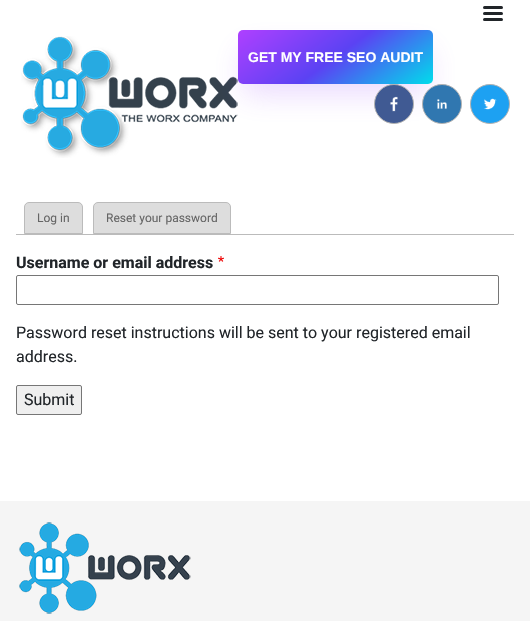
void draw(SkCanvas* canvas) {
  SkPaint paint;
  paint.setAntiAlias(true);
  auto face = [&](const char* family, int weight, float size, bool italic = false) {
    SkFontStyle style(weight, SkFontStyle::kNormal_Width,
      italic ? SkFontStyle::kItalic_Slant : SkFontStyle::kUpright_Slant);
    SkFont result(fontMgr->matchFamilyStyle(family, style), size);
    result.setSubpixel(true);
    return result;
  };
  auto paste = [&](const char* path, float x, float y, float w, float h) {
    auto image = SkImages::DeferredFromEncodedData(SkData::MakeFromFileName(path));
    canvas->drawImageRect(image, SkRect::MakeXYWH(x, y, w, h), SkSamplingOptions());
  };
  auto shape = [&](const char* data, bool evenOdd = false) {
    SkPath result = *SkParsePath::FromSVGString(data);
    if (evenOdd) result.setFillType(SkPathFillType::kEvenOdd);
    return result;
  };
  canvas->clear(0xffffffff);
  paint.setColor(0xff212529);
  canvas->drawRoundRect(SkRect::MakeXYWH(483, 6, 20, 3), 1.5f, 1.5f, paint);
  canvas->drawRoundRect(SkRect::MakeXYWH(483, 12, 20, 3), 1.5f, 1.5f, paint);
  canvas->drawRoundRect(SkRect::MakeXYWH(483, 18, 20, 3), 1.5f, 1.5f, paint);
  paste("img/1.png", 21, 36, 217, 122);
  paint.setColor(0x339741fc);
  paint.setMaskFilter(SkMaskFilter::MakeBlur(kNormal_SkBlurStyle, 15));
  canvas->drawRect(SkRect::MakeXYWH(243, 50, 185, 44), paint);
  paint.setMaskFilter(nullptr);
  {
    const SkColor colors[] = {0xffaf40ff, 0xff5b42f3, 0xff00ddeb};
    const float stops[] = {0, 0.5f, 1};
    const SkPoint ends[] = {{289, -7}, {382, 121}};
    paint.setShader(SkGradientShader::MakeLinear(ends, colors, stops, 3, SkTileMode::kClamp));
    paint.setAlpha(255);
  }
  canvas->drawRoundRect(SkRect::MakeXYWH(238, 30, 195, 54), 5, 5, paint);
  paint.setShader(nullptr);
  paint.setColor(0xff405a93);
  canvas->drawCircle(394, 104, 19.5f, paint);
  paint.setStroke(true);
  paint.setStrokeWidth(1);
  paint.setColor(0xffb2b2b2);
  canvas->drawCircle(394, 104, 19.5f, paint);
  paste("img/2.png", 390, 96, 8, 16);
  paint.setStroke(false);
  paint.setColor(0xff3077b0);
  canvas->drawCircle(442, 104, 19.5f, paint);
  paint.setStroke(true);
  paint.setColor(0xffb2b2b2);
  canvas->drawCircle(442, 104, 19.5f, paint);
  paste("img/3.png", 437, 99, 10, 10);
  paint.setStroke(false);
  paint.setColor(0xff1da1f2);
  canvas->drawCircle(490, 104, 19.5f, paint);
  paint.setStroke(true);
  paint.setColor(0xffb2b2b2);
  canvas->drawCircle(490, 104, 19.5f, paint);
  paste("img/4.png", 483, 98, 14, 12);
  paint.setStroke(false);
  paint.setColor(0xffbbbbbb);
  canvas->drawRect(SkRect::MakeXYWH(16, 234, 498, 1), paint);
  paint.setColor(0xffdddddd);
  canvas->drawPath(shape("M29 202.5H78C80.5 202.5 82.5 204.5 82.5 207V233.5H24.5V207C24.5 204.5 26.5 202.5 29 202.5Z"), paint);
  paint.setStroke(true);
  paint.setColor(0xffbbbbbb);
  canvas->drawPath(shape("M29 202.5H78C80.5 202.5 82.5 204.5 82.5 207V233.5H24.5V207C24.5 204.5 26.5 202.5 29 202.5Z"), paint);
  paint.setStroke(false);
  paint.setColor(0xffdddddd);
  canvas->drawPath(shape("M98 202.5H226C228.5 202.5 230.5 204.5 230.5 207V233.5H93.5V207C93.5 204.5 95.5 202.5 98 202.5Z"), paint);
  paint.setStroke(true);
  paint.setColor(0xffbbbbbb);
  canvas->drawPath(shape("M98 202.5H226C228.5 202.5 230.5 204.5 230.5 207V233.5H93.5V207C93.5 204.5 95.5 202.5 98 202.5Z"), paint);
  paste("img/5.png", 218, 256, 6, 6);
  paint.setColor(0xff767676);
  canvas->drawRoundRect(SkRect::MakeXYWH(16.5f, 275.5f, 482, 29), 1.5f, 1.5f, paint);
  paint.setStroke(false);
  paint.setColor(0xffefefef);
  canvas->drawRoundRect(SkRect::MakeXYWH(16.5f, 385.5f, 65, 29), 1.5f, 1.5f, paint);
  paint.setStroke(true);
  paint.setColor(0xff767676);
  canvas->drawRoundRect(SkRect::MakeXYWH(16.5f, 385.5f, 65, 29), 1.5f, 1.5f, paint);
  paint.setStroke(false);
  paint.setColor(0xfff5f5f5);
  canvas->drawRect(SkRect::MakeXYWH(0, 501, 530, 120), paint);
  paste("img/6.png", 19, 522, 172, 92);
  auto f0 = face("Liberation Sans", 700, 14);
  paint.setColor(0xffffffff);
  canvas->drawString("GET MY FREE SEO AUDIT", 248, 62, f0, paint);
  auto f1 = face("Roboto", 400, 12);
  paint.setColor(0xff656565);
  canvas->drawString("Log in", 37, 222, f1, paint);
  canvas->drawString("Reset your password", 106, 222, f1, paint);
  auto f2 = face("Roboto", 700, 16);
  paint.setColor(0xff212529);
  canvas->drawString("Username or email address", 16, 268, f2, paint);
  auto f3 = face("Roboto", 400, 16);
  {
    const struct { const char* s; float x, y; } items[] = {
      {"Password reset instructions will be sent to your registered email", 16, 338},
      {"address.", 16, 362},
      {"Submit", 24, 405},
    };
    for (auto [s, x, y] : items) {
      canvas->drawString(s, x, y, f3, paint);
    }
  }
}
